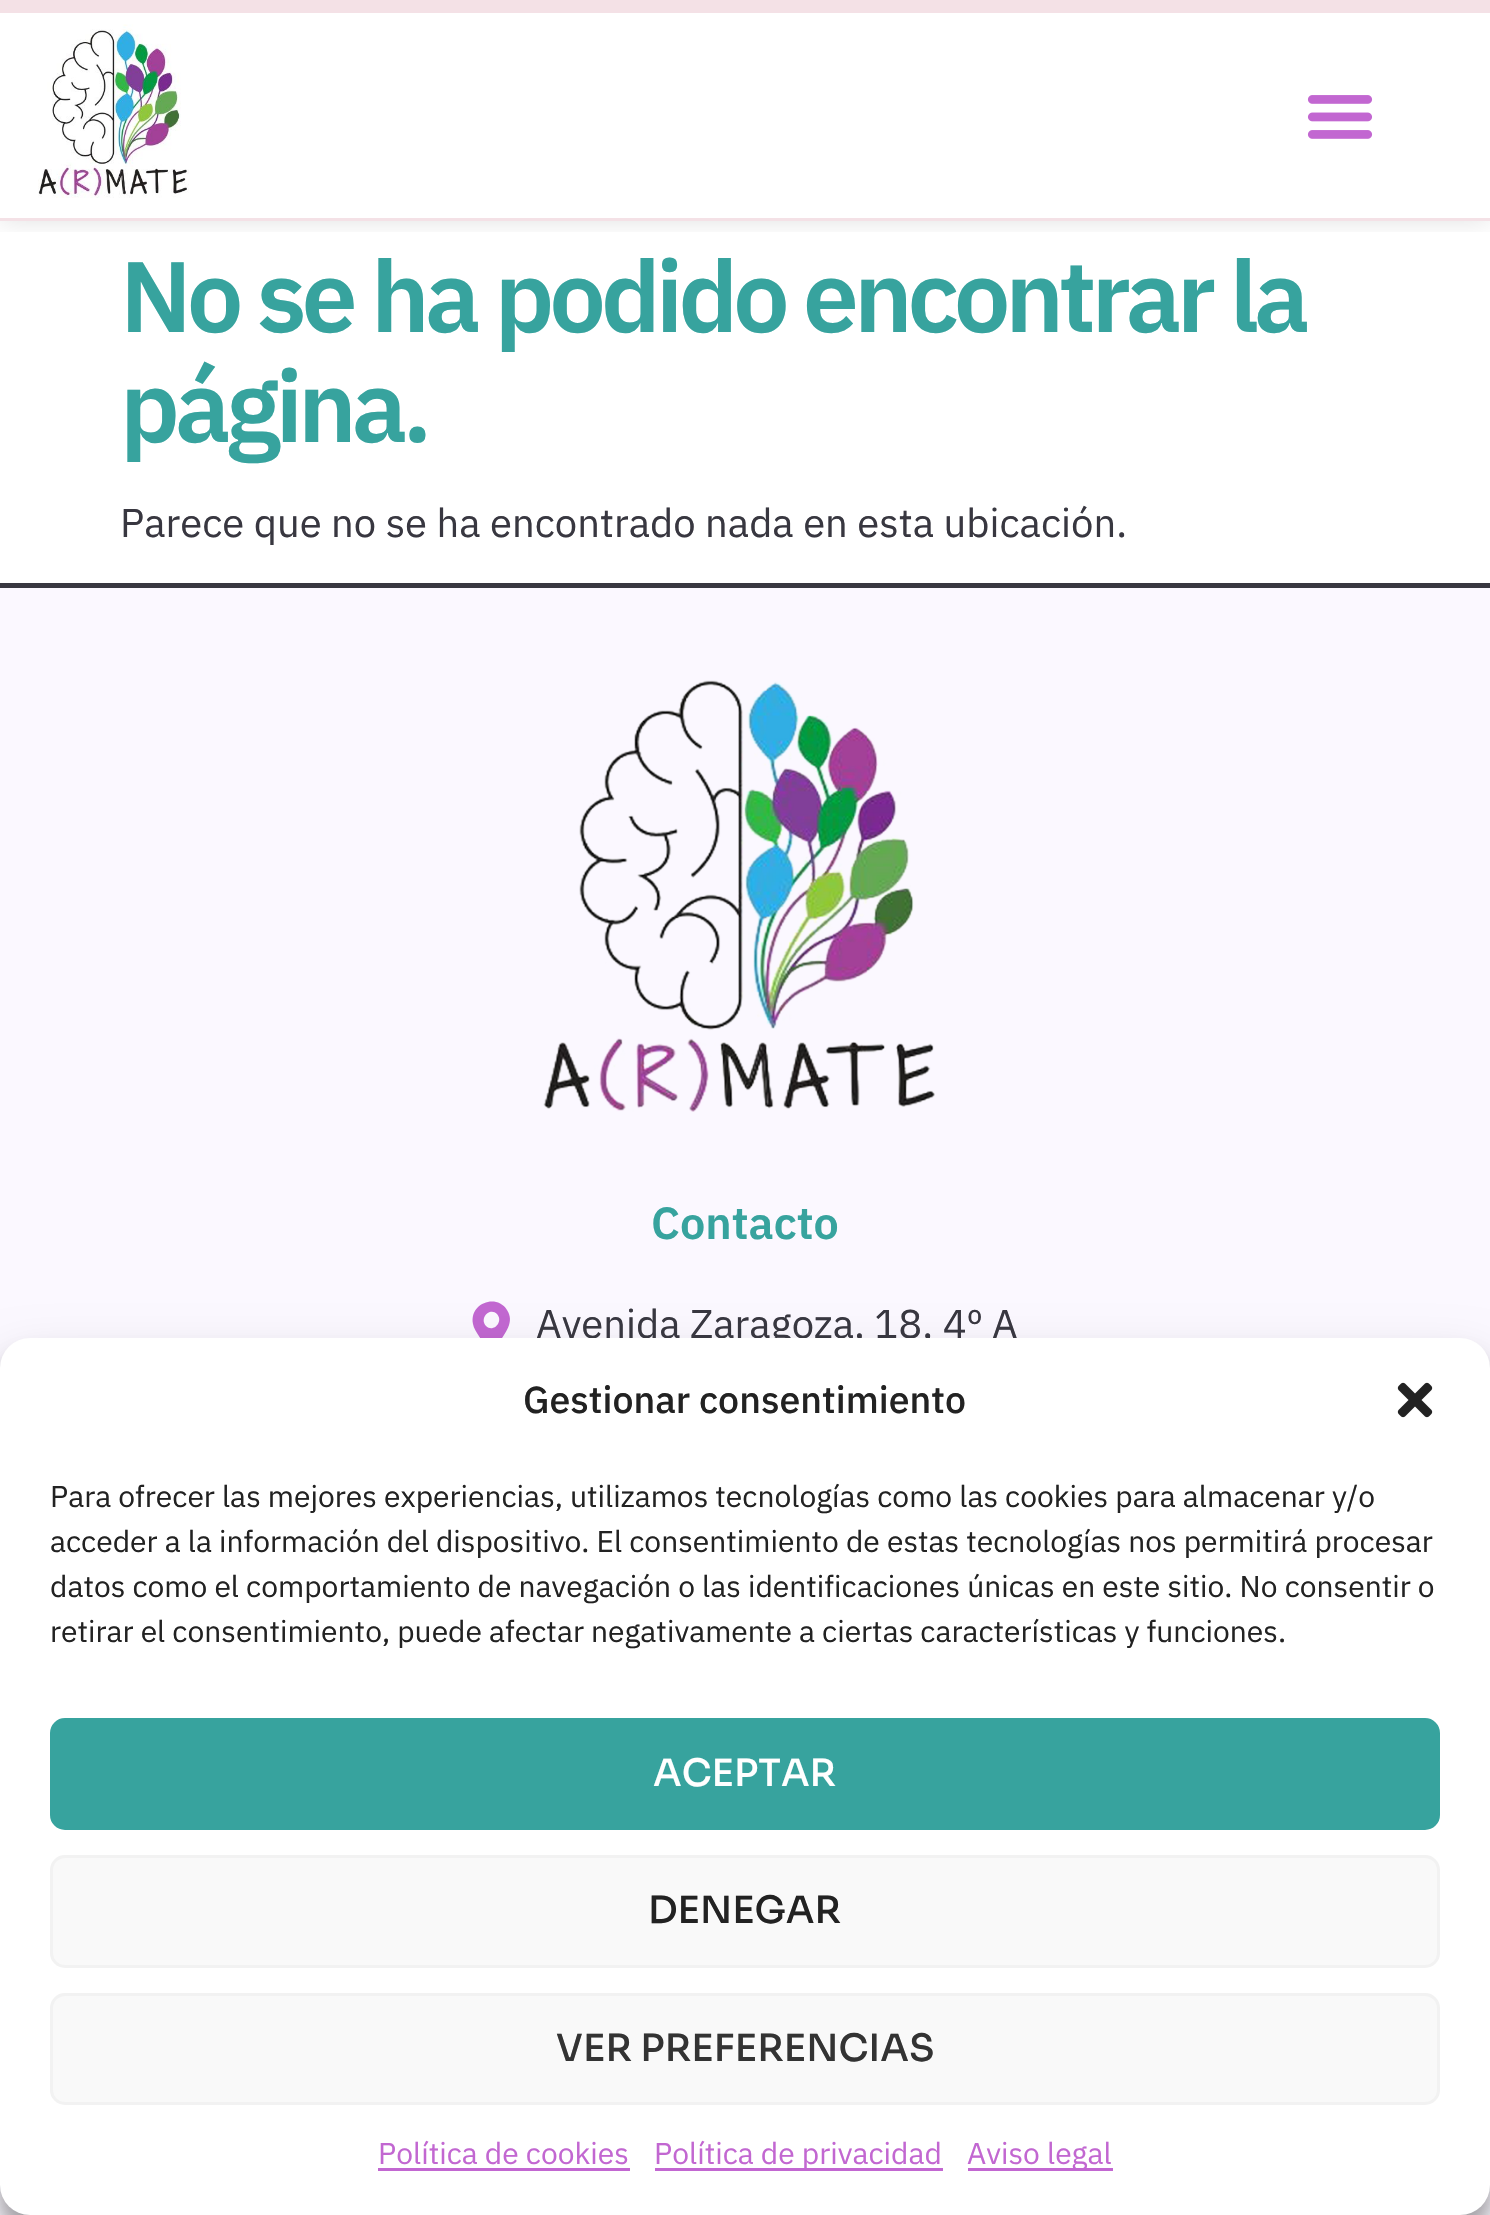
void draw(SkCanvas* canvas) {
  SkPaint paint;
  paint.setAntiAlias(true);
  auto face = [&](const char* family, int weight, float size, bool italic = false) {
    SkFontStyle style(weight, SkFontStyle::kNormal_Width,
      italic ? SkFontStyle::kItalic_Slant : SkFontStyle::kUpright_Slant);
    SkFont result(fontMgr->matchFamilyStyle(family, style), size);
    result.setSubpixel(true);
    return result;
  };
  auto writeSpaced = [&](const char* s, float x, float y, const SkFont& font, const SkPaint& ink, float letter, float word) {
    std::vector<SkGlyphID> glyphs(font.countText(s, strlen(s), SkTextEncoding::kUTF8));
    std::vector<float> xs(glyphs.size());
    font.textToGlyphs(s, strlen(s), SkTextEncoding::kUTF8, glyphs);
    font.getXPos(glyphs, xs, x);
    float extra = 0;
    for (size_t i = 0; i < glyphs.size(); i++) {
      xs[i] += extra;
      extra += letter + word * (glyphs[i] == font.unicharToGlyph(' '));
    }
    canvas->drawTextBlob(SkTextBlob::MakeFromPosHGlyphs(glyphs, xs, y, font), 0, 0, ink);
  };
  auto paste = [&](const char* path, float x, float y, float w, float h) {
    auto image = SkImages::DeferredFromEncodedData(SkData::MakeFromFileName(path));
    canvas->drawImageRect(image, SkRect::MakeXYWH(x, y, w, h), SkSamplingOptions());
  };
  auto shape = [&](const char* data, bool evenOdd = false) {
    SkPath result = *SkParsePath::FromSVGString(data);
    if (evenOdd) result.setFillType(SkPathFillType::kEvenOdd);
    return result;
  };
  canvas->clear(0xffffffff);
  canvas->save();
  canvas->clipRect(SkRect::MakeXYWH(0, 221, 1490, 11));
  paint.setColor(0x1f000000);
  paint.setMaskFilter(SkMaskFilter::MakeBlur(kNormal_SkBlurStyle, 12.5f));
  canvas->drawRect(SkRect::MakeXYWH(0, 0, 1490, 220), paint);
  paint.setMaskFilter(nullptr);
  canvas->restore();
  paint.setColor(0xfff4e1e6);
  canvas->drawRect(SkRect::MakeXYWH(0, 0, 1490, 13), paint);
  canvas->drawRect(SkRect::MakeXYWH(0, 218, 1490, 3), paint);
  paste("img/1.png", 38, 24, 151, 174);
  paste("img/2.png", 1307, 95, 66, 44);
  paint.setColor(0xfffbf8ff);
  canvas->drawRect(SkRect::MakeXYWH(0, 588, 1490, 1627), paint);
  paint.setColor(0xff383740);
  canvas->drawRect(SkRect::MakeXYWH(0, 583, 1490, 5), paint);
  paste("img/3.png", 543, 680, 392, 432);
  paint.setColor(0xffc267d1);
  canvas->drawPath(shape("M489 1350C485 1344 474 1331 473 1324C469 1304 496 1293 507 1310C515 1322 505 1333 499 1343L492 1351C491 1352 490 1351 489 1350ZM486 1326C493 1333 504 1322 497 1314C490 1307 479 1318 486 1326Z"), paint);
  paint.setColor(0x3b000000);
  paint.setMaskFilter(SkMaskFilter::MakeBlur(kNormal_SkBlurStyle, 7.5f));
  canvas->drawRoundRect(SkRect::MakeXYWH(0, 1353, 1490, 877), 30, 30, paint);
  paint.setMaskFilter(nullptr);
  paint.setColor(0x30000000);
  paint.setMaskFilter(SkMaskFilter::MakeBlur(kNormal_SkBlurStyle, 25));
  canvas->drawRoundRect(SkRect::MakeXYWH(0, 1363, 1490, 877), 30, 30, paint);
  paint.setMaskFilter(nullptr);
  auto f0 = face("IBM Plex Sans", 600, 100);
  paint.setColor(0xff37a39e);
  writeSpaced("No se ha podido encontrar la", 120, 332, f0, paint, -5, 0);
  writeSpaced("página.", 120, 442, f0, paint, -5, 0);
  auto f1 = face("IBM Plex Sans", 400, 40);
  paint.setColor(0xff383740);
  canvas->drawString("Parece que no se ha encontrado nada en esta ubicación.", 120, 537, f1, paint);
  auto f2 = face("IBM Plex Sans", 600, 45);
  paint.setColor(0xff37a39e);
  canvas->drawString("Contacto", 651, 1239, f2, paint);
  paint.setColor(0xff383740);
  canvas->drawString("Avenida Zaragoza, 18, 4º A", 536, 1338, f1, paint);
  paint.setColor(0xffffffff);
  canvas->drawRoundRect(SkRect::MakeXYWH(0, 1338, 1490, 877), 30, 30, paint);
  auto f3 = face("IBM Plex Sans", 500, 37.5f);
  paint.setColor(0xff222222);
  canvas->drawString("Gestionar consentimiento", 523, 1413, f3, paint);
  paste("img/4.png", 1397, 1382, 36, 36);
  auto f4 = face("IBM Plex Sans", 400, 30);
  {
    const struct { const char* s; float x, y; } items[] = {
      {"Para ofrecer las mejores experiencias, utilizamos tecnologías como las cookies para almacenar y/o", 50, 1507},
      {"acceder a la información del dispositivo. El consentimiento de estas tecnologías nos permitirá procesar", 50, 1552},
      {"datos como el comportamiento de navegación o las identificaciones únicas en este sitio. No consentir o", 50, 1597},
      {"retirar el consentimiento, puede afectar negativamente a ciertas características y funciones.", 50, 1642},
    };
    for (auto [s, x, y] : items) {
      canvas->drawString(s, x, y, f4, paint);
    }
  }
  paint.setColor(0xff37a39e);
  canvas->drawRoundRect(SkRect::MakeXYWH(51.5f, 1719.5f, 1387, 109), 13.5f, 13.5f, paint);
  paint.setStroke(true);
  paint.setStrokeWidth(3);
  canvas->drawRoundRect(SkRect::MakeXYWH(51.5f, 1719.5f, 1387, 109), 13.5f, 13.5f, paint);
  auto f5 = face("Sora", 500, 37.5f);
  paint.setStroke(false);
  paint.setColor(0xffffffff);
  canvas->drawString("ACEPTAR", 653, 1786, f5, paint);
  paint.setColor(0xfff9f9f9);
  canvas->drawRoundRect(SkRect::MakeXYWH(51.5f, 1856.5f, 1387, 110), 13.5f, 13.5f, paint);
  paint.setStroke(true);
  paint.setColor(0xfff2f2f2);
  canvas->drawRoundRect(SkRect::MakeXYWH(51.5f, 1856.5f, 1387, 110), 13.5f, 13.5f, paint);
  paint.setStroke(false);
  paint.setColor(0xff222222);
  canvas->drawString("DENEGAR", 648, 1923, f5, paint);
  paint.setColor(0xfff9f9f9);
  canvas->drawRoundRect(SkRect::MakeXYWH(51.5f, 1994.5f, 1387, 109), 13.5f, 13.5f, paint);
  paint.setStroke(true);
  paint.setColor(0xfff2f2f2);
  canvas->drawRoundRect(SkRect::MakeXYWH(51.5f, 1994.5f, 1387, 109), 13.5f, 13.5f, paint);
  paint.setStroke(false);
  paint.setColor(0xff333333);
  canvas->drawString("VER PREFERENCIAS", 556, 2061, f5, paint);
  paint.setColor(0xffc267d1);
  canvas->drawString("Política de cookies", 378, 2164, f4, paint);
  canvas->drawRect(SkRect::MakeXYWH(378, 2168, 252, 3), paint);
  canvas->drawRect(SkRect::MakeXYWH(655, 2168, 288, 3), paint);
  canvas->drawString("Política de privacidad", 654, 2164, f4, paint);
  canvas->drawRect(SkRect::MakeXYWH(968, 2168, 145, 3), paint);
  canvas->drawString("Aviso legal", 967, 2164, f4, paint);
}
